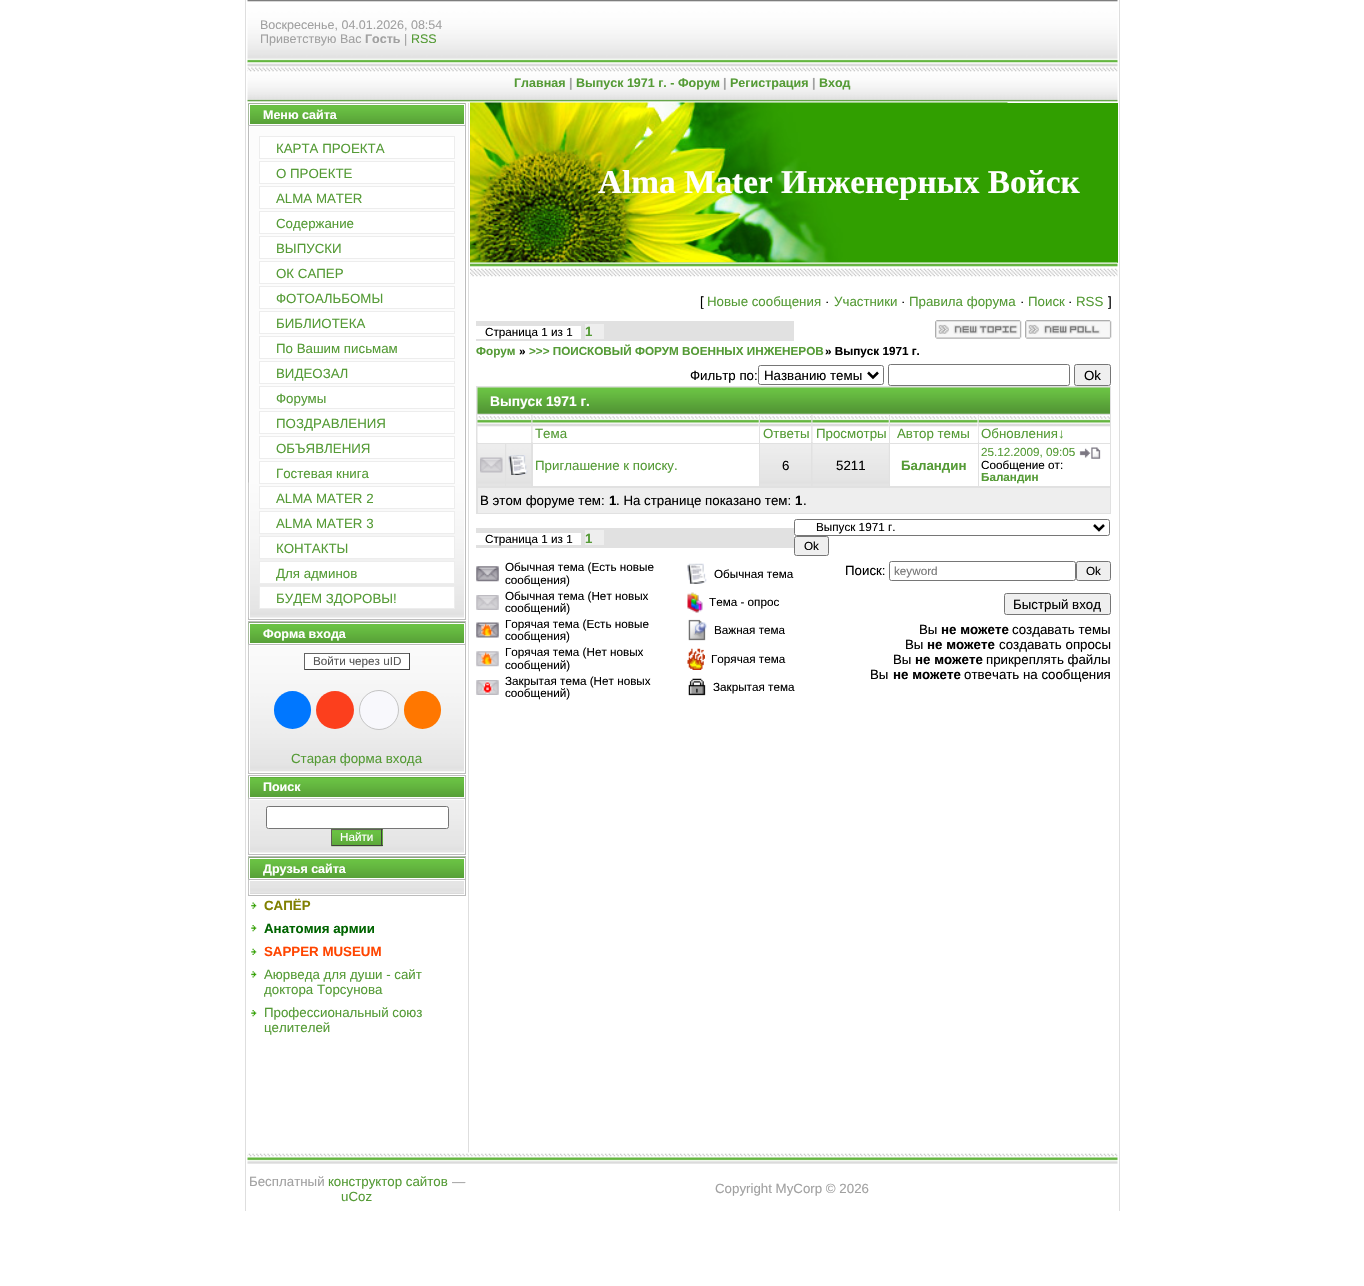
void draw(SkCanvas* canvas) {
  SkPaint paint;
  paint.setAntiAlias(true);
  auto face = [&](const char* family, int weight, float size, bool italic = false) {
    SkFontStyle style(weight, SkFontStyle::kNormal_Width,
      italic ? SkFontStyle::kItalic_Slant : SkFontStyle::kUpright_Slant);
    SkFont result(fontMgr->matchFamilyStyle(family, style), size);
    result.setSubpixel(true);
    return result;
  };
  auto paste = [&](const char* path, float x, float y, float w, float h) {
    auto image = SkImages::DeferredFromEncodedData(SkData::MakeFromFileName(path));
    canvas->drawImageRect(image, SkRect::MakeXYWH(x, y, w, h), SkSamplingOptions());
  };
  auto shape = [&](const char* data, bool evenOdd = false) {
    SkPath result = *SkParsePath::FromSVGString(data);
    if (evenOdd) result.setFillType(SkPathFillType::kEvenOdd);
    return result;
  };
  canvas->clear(0xffffffff);
  paint.setColor(0xffdedede);
  canvas->drawRect(SkRect::MakeXYWH(1119, 0, 1, 1211), paint);
  canvas->drawRect(SkRect::MakeXYWH(245, 0, 1, 1211), paint);
  paste("img/1.png", 247, 0, 871, 63);
  paste("img/2.png", 247, 62, 871, 40);
  paint.setColor(0xffbcbcbc);
  canvas->drawRect(SkRect::MakeXYWH(248, 103, 218, 517), paint);
  paste("img/3.png", 248, 103, 217, 22);
  paint.setStroke(true);
  paint.setStrokeWidth(1);
  paint.setColor(0xffffffff);
  canvas->drawRect(SkRect::MakeXYWH(249.5f, 104.5f, 215, 20), paint);
  paint.setStroke(false);
  paint.setColor(0xfffcfcfc);
  canvas->drawRect(SkRect::MakeXYWH(250, 127, 214, 491), paint);
  paste("img/4.png", 248, 482, 216, 136);
  paint.setStroke(true);
  paint.setColor(0xffffffff);
  canvas->drawRect(SkRect::MakeXYWH(249.5f, 126.5f, 215, 492), paint);
  paint.setStroke(false);
  canvas->drawRect(SkRect::MakeXYWH(259.5f, 136.5f, 195, 22), paint);
  paint.setStroke(true);
  paint.setColor(0xffededed);
  canvas->drawRect(SkRect::MakeXYWH(259.5f, 136.5f, 195, 22), paint);
  paint.setStroke(false);
  paint.setColor(0xffffffff);
  canvas->drawRect(SkRect::MakeXYWH(259.5f, 161.5f, 195, 22), paint);
  paint.setStroke(true);
  paint.setColor(0xffededed);
  canvas->drawRect(SkRect::MakeXYWH(259.5f, 161.5f, 195, 22), paint);
  paint.setStroke(false);
  paint.setColor(0xffffffff);
  canvas->drawRect(SkRect::MakeXYWH(259.5f, 186.5f, 195, 22), paint);
  paint.setStroke(true);
  paint.setColor(0xffededed);
  canvas->drawRect(SkRect::MakeXYWH(259.5f, 186.5f, 195, 22), paint);
  paint.setStroke(false);
  paint.setColor(0xffffffff);
  canvas->drawRect(SkRect::MakeXYWH(259.5f, 211.5f, 195, 22), paint);
  paint.setStroke(true);
  paint.setColor(0xffededed);
  canvas->drawRect(SkRect::MakeXYWH(259.5f, 211.5f, 195, 22), paint);
  paint.setStroke(false);
  paint.setColor(0xffffffff);
  canvas->drawRect(SkRect::MakeXYWH(259.5f, 236.5f, 195, 22), paint);
  paint.setStroke(true);
  paint.setColor(0xffededed);
  canvas->drawRect(SkRect::MakeXYWH(259.5f, 236.5f, 195, 22), paint);
  paint.setStroke(false);
  paint.setColor(0xffffffff);
  canvas->drawRect(SkRect::MakeXYWH(259.5f, 261.5f, 195, 22), paint);
  paint.setStroke(true);
  paint.setColor(0xffededed);
  canvas->drawRect(SkRect::MakeXYWH(259.5f, 261.5f, 195, 22), paint);
  paint.setStroke(false);
  paint.setColor(0xffffffff);
  canvas->drawRect(SkRect::MakeXYWH(259.5f, 286.5f, 195, 22), paint);
  paint.setStroke(true);
  paint.setColor(0xffededed);
  canvas->drawRect(SkRect::MakeXYWH(259.5f, 286.5f, 195, 22), paint);
  paint.setStroke(false);
  paint.setColor(0xffffffff);
  canvas->drawRect(SkRect::MakeXYWH(259.5f, 311.5f, 195, 22), paint);
  paint.setStroke(true);
  paint.setColor(0xffededed);
  canvas->drawRect(SkRect::MakeXYWH(259.5f, 311.5f, 195, 22), paint);
  paint.setStroke(false);
  paint.setColor(0xffffffff);
  canvas->drawRect(SkRect::MakeXYWH(259.5f, 336.5f, 195, 22), paint);
  paint.setStroke(true);
  paint.setColor(0xffededed);
  canvas->drawRect(SkRect::MakeXYWH(259.5f, 336.5f, 195, 22), paint);
  paint.setStroke(false);
  paint.setColor(0xffffffff);
  canvas->drawRect(SkRect::MakeXYWH(259.5f, 361.5f, 195, 22), paint);
  paint.setStroke(true);
  paint.setColor(0xffededed);
  canvas->drawRect(SkRect::MakeXYWH(259.5f, 361.5f, 195, 22), paint);
  paint.setStroke(false);
  paint.setColor(0xffffffff);
  canvas->drawRect(SkRect::MakeXYWH(259.5f, 386.5f, 195, 22), paint);
  paint.setStroke(true);
  paint.setColor(0xffededed);
  canvas->drawRect(SkRect::MakeXYWH(259.5f, 386.5f, 195, 22), paint);
  paint.setStroke(false);
  paint.setColor(0xffffffff);
  canvas->drawRect(SkRect::MakeXYWH(259.5f, 411.5f, 195, 22), paint);
  paint.setStroke(true);
  paint.setColor(0xffededed);
  canvas->drawRect(SkRect::MakeXYWH(259.5f, 411.5f, 195, 22), paint);
  paint.setStroke(false);
  paint.setColor(0xffffffff);
  canvas->drawRect(SkRect::MakeXYWH(259.5f, 436.5f, 195, 22), paint);
  paint.setStroke(true);
  paint.setColor(0xffededed);
  canvas->drawRect(SkRect::MakeXYWH(259.5f, 436.5f, 195, 22), paint);
  paint.setStroke(false);
  paint.setColor(0xffffffff);
  canvas->drawRect(SkRect::MakeXYWH(259.5f, 461.5f, 195, 22), paint);
  paint.setStroke(true);
  paint.setColor(0xffededed);
  canvas->drawRect(SkRect::MakeXYWH(259.5f, 461.5f, 195, 22), paint);
  paint.setStroke(false);
  paint.setColor(0xffffffff);
  canvas->drawRect(SkRect::MakeXYWH(259.5f, 486.5f, 195, 22), paint);
  paint.setStroke(true);
  paint.setColor(0xffededed);
  canvas->drawRect(SkRect::MakeXYWH(259.5f, 486.5f, 195, 22), paint);
  paint.setStroke(false);
  paint.setColor(0xffffffff);
  canvas->drawRect(SkRect::MakeXYWH(259.5f, 511.5f, 195, 22), paint);
  paint.setStroke(true);
  paint.setColor(0xffededed);
  canvas->drawRect(SkRect::MakeXYWH(259.5f, 511.5f, 195, 22), paint);
  paint.setStroke(false);
  paint.setColor(0xffffffff);
  canvas->drawRect(SkRect::MakeXYWH(259.5f, 536.5f, 195, 22), paint);
  paint.setStroke(true);
  paint.setColor(0xffededed);
  canvas->drawRect(SkRect::MakeXYWH(259.5f, 536.5f, 195, 22), paint);
  paint.setStroke(false);
  paint.setColor(0xffffffff);
  canvas->drawRect(SkRect::MakeXYWH(259.5f, 561.5f, 195, 22), paint);
  paint.setStroke(true);
  paint.setColor(0xffededed);
  canvas->drawRect(SkRect::MakeXYWH(259.5f, 561.5f, 195, 22), paint);
  paint.setStroke(false);
  paint.setColor(0xffffffff);
  canvas->drawRect(SkRect::MakeXYWH(259.5f, 586.5f, 195, 22), paint);
  paint.setStroke(true);
  paint.setColor(0xffededed);
  canvas->drawRect(SkRect::MakeXYWH(259.5f, 586.5f, 195, 22), paint);
  paint.setStroke(false);
  paint.setColor(0xffbcbcbc);
  canvas->drawRect(SkRect::MakeXYWH(248, 621, 218, 153), paint);
  paste("img/5.png", 248, 622, 217, 22);
  paint.setStroke(true);
  paint.setColor(0xffffffff);
  canvas->drawRect(SkRect::MakeXYWH(249.5f, 623.5f, 215, 20), paint);
  paint.setStroke(false);
  paint.setColor(0xfffcfcfc);
  canvas->drawRect(SkRect::MakeXYWH(250, 771, 214, 1), paint);
  paste("img/6.png", 248, 645, 216, 127);
  paint.setStroke(true);
  paint.setColor(0xffffffff);
  canvas->drawRect(SkRect::MakeXYWH(249.5f, 645.5f, 215, 127), paint);
  paint.setStroke(false);
  {
    const struct { float x, y, w, h; SkColor color; } items[] = {
      {305, 654, 104, 15, 0xffffffff},
      {304, 653, 106, 1, 0xff636363},
      {409, 653, 1, 17, 0xff424242},
      {304, 669, 106, 1, 0xff424242},
      {304, 653, 1, 17, 0xff636363},
    };
    for (auto [x, y, w, h, color] : items) {
      paint.setColor(color);
      canvas->drawRect(SkRect::MakeXYWH(x, y, w, h), paint);
    }
  }
  paint.setColor(0xff0077ff);
  canvas->drawRoundRect(SkRect::MakeXYWH(274, 691, 37, 38), 18.5f, 18.5f, paint);
  paint.setColor(0xfffc3f1d);
  canvas->drawCircle(335, 710, 19, paint);
  paint.setColor(0xfff8f8fc);
  canvas->drawCircle(379, 710, 19.5f, paint);
  paint.setStroke(true);
  paint.setColor(0xffc4c4c4);
  canvas->drawCircle(379, 710, 19.5f, paint);
  paint.setStroke(false);
  paint.setColor(0xffff7700);
  canvas->drawRoundRect(SkRect::MakeXYWH(404, 691, 37, 38), 18.5f, 18.5f, paint);
  paint.setColor(0xffbcbcbc);
  canvas->drawRect(SkRect::MakeXYWH(248, 775, 218, 80), paint);
  paste("img/7.png", 248, 776, 216, 22);
  paint.setStroke(true);
  paint.setColor(0xffffffff);
  canvas->drawRect(SkRect::MakeXYWH(249.5f, 776.5f, 215, 21), paint);
  paint.setStroke(false);
  paint.setColor(0xfffcfcfc);
  canvas->drawRect(SkRect::MakeXYWH(250, 852, 214, 1), paint);
  paste("img/8.png", 248, 798, 217, 55);
  paint.setStroke(true);
  paint.setColor(0xffffffff);
  canvas->drawRect(SkRect::MakeXYWH(249.5f, 799.5f, 215, 54), paint);
  paint.setStroke(false);
  canvas->drawRoundRect(SkRect::MakeXYWH(266.5f, 806.5f, 182, 22), 2, 2, paint);
  paint.setStroke(true);
  paint.setColor(0xff767676);
  canvas->drawRoundRect(SkRect::MakeXYWH(266.5f, 806.5f, 182, 22), 2, 2, paint);
  paint.setStroke(false);
  paint.setColor(0xff559b36);
  canvas->drawRect(SkRect::MakeXYWH(382, 830, 1, 15), paint);
  paste("img/9.png", 331, 828, 52, 19);
  {
    const struct { float x, y, w, h; SkColor color; } items[] = {
      {331, 829, 52, 1, 0xff615e58},
      {381, 829, 1, 17, 0xff413f3b},
      {331, 845, 52, 1, 0xff413f3b},
      {331, 829, 1, 17, 0xff615e58},
      {248, 856, 218, 40, 0xffbcbcbc},
    };
    for (auto [x, y, w, h, color] : items) {
      paint.setColor(color);
      canvas->drawRect(SkRect::MakeXYWH(x, y, w, h), paint);
    }
  }
  paste("img/5.png", 248, 857, 217, 22);
  paint.setStroke(true);
  paint.setColor(0xffffffff);
  canvas->drawRect(SkRect::MakeXYWH(249.5f, 858.5f, 215, 20), paint);
  paste("img/10.png", 248, 880, 216, 14);
  canvas->drawRect(SkRect::MakeXYWH(249.5f, 880.5f, 215, 14), paint);
  paste("img/11.png", 251, 902, 6, 7);
  paste("img/12.png", 251, 925, 6, 7);
  paste("img/13.png", 251, 948, 6, 7);
  paste("img/14.png", 251, 971, 6, 7);
  paste("img/12.png", 251, 1010, 6, 7);
  paint.setStroke(false);
  paint.setColor(0xffdedede);
  canvas->drawRect(SkRect::MakeXYWH(468, 103, 1, 1050), paint);
  paint.setColor(0xff319f00);
  canvas->drawRect(SkRect::MakeXYWH(470, 103, 648, 160), paint);
  paste("img/15.png", 470, 102, 538, 161);
  paste("img/16.png", 470, 262, 648, 15);
  {
    const struct { float x, y, w, h; SkColor color; } items[] = {
      {476, 321, 318, 20, 0xffe1e1e1},
      {476, 326, 105, 13, 0xffffffff},
      {585, 324, 19, 15, 0xffeeeeee},
    };
    for (auto [x, y, w, h, color] : items) {
      paint.setColor(color);
      canvas->drawRect(SkRect::MakeXYWH(x, y, w, h), paint);
    }
  }
  paste("img/17.png", 935, 320, 87, 19);
  paste("img/18.png", 1025, 320, 87, 19);
  paint.setStroke(true);
  paint.setColor(0xff767676);
  canvas->drawRoundRect(SkRect::MakeXYWH(758.5f, 365.5f, 125, 19), 2, 2, paint);
  paint.setStrokeWidth(2.5f);
  paint.setColor(0xff000000);
  canvas->drawPath(shape("M868 372.5L873 377.5L878 372.5"), paint);
  paint.setStrokeWidth(1);
  paint.setColor(0xff767676);
  canvas->drawRoundRect(SkRect::MakeXYWH(888.5f, 364.5f, 181, 21), 2, 2, paint);
  paint.setStroke(false);
  paint.setColor(0xffefefef);
  canvas->drawRoundRect(SkRect::MakeXYWH(1074.5f, 364.5f, 36, 21), 2, 2, paint);
  paint.setStroke(true);
  paint.setColor(0xff767676);
  canvas->drawRoundRect(SkRect::MakeXYWH(1074.5f, 364.5f, 36, 21), 2, 2, paint);
  paint.setStroke(false);
  paint.setColor(0xffe1e1e1);
  canvas->drawRect(SkRect::MakeXYWH(476, 386, 635, 128), paint);
  paste("img/19.png", 477, 387, 633, 27);
  paint.setColor(0xffffffff);
  canvas->drawRect(SkRect::MakeXYWH(478, 442, 53, 1), paint);
  paste("img/20.png", 477, 415, 55, 28);
  canvas->drawRect(SkRect::MakeXYWH(533, 415, 226, 28), paint);
  paste("img/21.png", 532, 415, 227, 28);
  canvas->drawRect(SkRect::MakeXYWH(760, 442, 51, 1), paint);
  paste("img/22.png", 760, 415, 52, 27);
  canvas->drawRect(SkRect::MakeXYWH(813, 415, 76, 28), paint);
  paste("img/23.png", 812, 415, 77, 28);
  canvas->drawRect(SkRect::MakeXYWH(890, 415, 88, 28), paint);
  paste("img/24.png", 890, 416, 88, 11);
  canvas->drawRect(SkRect::MakeXYWH(979, 442, 131, 1), paint);
  paste("img/25.png", 978, 415, 132, 27);
  paste("img/26.png", 477, 444, 28, 42);
  paste("img/27.png", 480, 457, 23, 16);
  paste("img/28.png", 506, 444, 25, 42);
  paste("img/29.png", 508, 455, 20, 20);
  canvas->drawRect(SkRect::MakeXYWH(533, 444, 226, 42), paint);
  paste("img/30.png", 760, 444, 51, 42);
  paste("img/31.png", 812, 444, 77, 42);
  canvas->drawRect(SkRect::MakeXYWH(890, 444, 88, 42), paint);
  canvas->drawRect(SkRect::MakeXYWH(979, 444, 131, 42), paint);
  paste("img/32.png", 1079, 447, 22, 12);
  {
    const struct { float x, y, w, h; SkColor color; } items[] = {
      {478, 488, 632, 25, 0xffeeeeee},
      {476, 528, 318, 20, 0xffe1e1e1},
      {476, 533, 105, 12, 0xffffffff},
      {585, 530, 19, 15, 0xffeeeeee},
    };
    for (auto [x, y, w, h, color] : items) {
      paint.setColor(color);
      canvas->drawRect(SkRect::MakeXYWH(x, y, w, h), paint);
    }
  }
  paint.setStroke(true);
  paint.setColor(0xff767676);
  canvas->drawRoundRect(SkRect::MakeXYWH(794.5f, 519.5f, 315, 16), 2, 2, paint);
  paint.setStrokeWidth(2.5f);
  paint.setColor(0xff000000);
  canvas->drawPath(shape("M1094 525L1099 530L1104 525"), paint);
  paint.setStroke(false);
  paint.setColor(0xffefefef);
  canvas->drawRoundRect(SkRect::MakeXYWH(794.5f, 536.5f, 34, 19), 2, 2, paint);
  paint.setStroke(true);
  paint.setStrokeWidth(1);
  paint.setColor(0xff767676);
  canvas->drawRoundRect(SkRect::MakeXYWH(794.5f, 536.5f, 34, 19), 2, 2, paint);
  paste("img/33.png", 476, 566, 23, 16);
  paste("img/34.png", 687, 563, 20, 21);
  paste("img/35.png", 476, 595, 23, 15);
  paste("img/36.png", 687, 592, 16, 21);
  paste("img/37.png", 476, 622, 23, 16);
  paste("img/38.png", 688, 619, 19, 22);
  paste("img/39.png", 476, 651, 23, 16);
  paste("img/40.png", 687, 648, 18, 22);
  paste("img/41.png", 476, 680, 23, 15);
  paste("img/42.png", 688, 678, 18, 18);
  canvas->drawRoundRect(SkRect::MakeXYWH(889.5f, 561.5f, 186, 19), 2, 2, paint);
  paint.setStroke(false);
  paint.setColor(0xffefefef);
  canvas->drawRoundRect(SkRect::MakeXYWH(1076.5f, 561.5f, 34, 19), 2, 2, paint);
  paint.setStroke(true);
  paint.setColor(0xff767676);
  canvas->drawRoundRect(SkRect::MakeXYWH(1076.5f, 561.5f, 34, 19), 2, 2, paint);
  paint.setStroke(false);
  paint.setColor(0xffefefef);
  canvas->drawRoundRect(SkRect::MakeXYWH(1004.5f, 593.5f, 106, 21), 2, 2, paint);
  paint.setStroke(true);
  paint.setColor(0xff767676);
  canvas->drawRoundRect(SkRect::MakeXYWH(1004.5f, 593.5f, 106, 21), 2, 2, paint);
  paste("img/43.png", 247, 1152, 871, 12);
  auto f0 = face("Liberation Sans", 400, 12.5f);
  paint.setStroke(false);
  paint.setColor(0xffa1a1a1);
  canvas->drawString("Воскресенье, 04.01.2026, 08:54", 260, 29, f0, paint);
  canvas->drawString("Приветствую Вас", 260, 43, f0, paint);
  auto f1 = face("Liberation Sans", 700, 12.5f);
  canvas->drawString("Гость", 365, 43, f1, paint);
  canvas->drawString("|", 404, 43, f0, paint);
  paint.setColor(0xff559b36);
  canvas->drawString("RSS", 411, 43, f0, paint);
  canvas->drawString("Главная", 514, 87, f1, paint);
  paint.setColor(0xffa1a1a1);
  canvas->drawString("|", 569, 87, f1, paint);
  paint.setColor(0xff559b36);
  canvas->drawString("Выпуск 1971 г. - Форум", 576, 87, f1, paint);
  paint.setColor(0xffa1a1a1);
  canvas->drawString("|", 723, 87, f1, paint);
  paint.setColor(0xff559b36);
  canvas->drawString("Регистрация", 730, 87, f1, paint);
  paint.setColor(0xffa1a1a1);
  canvas->drawString("|", 812, 87, f1, paint);
  paint.setColor(0xff559b36);
  canvas->drawString("Вход", 819, 87, f1, paint);
  paint.setColor(0xffffffff);
  canvas->drawString("Меню сайта", 263, 119, f1, paint);
  auto f2 = face("Liberation Sans", 400, 13.3f);
  paint.setColor(0xff559b36);
  {
    const struct { const char* s; float x, y; } items[] = {
      {"КАРТА ПРОЕКТА", 276, 153},
      {"О ПРОЕКТЕ", 276, 178},
      {"ALMA MATER", 276, 203},
      {"Содержание", 276, 228},
      {"ВЫПУСКИ", 276, 253},
      {"ОК САПЕР", 276, 278},
      {"ФОТОАЛЬБОМЫ", 276, 303},
      {"БИБЛИОТЕКА", 276, 328},
      {"По Вашим письмам", 276, 353},
      {"ВИДЕОЗАЛ", 276, 378},
      {"Форумы", 276, 403},
      {"ПОЗДРАВЛЕНИЯ", 276, 428},
      {"ОБЪЯВЛЕНИЯ", 276, 453},
      {"Гостевая книга", 276, 478},
      {"ALMA MATER 2", 276, 503},
      {"ALMA MATER 3", 276, 528},
      {"КОНТАКТЫ", 276, 553},
      {"Для админов", 276, 578},
      {"БУДЕМ ЗДОРОВЫ!", 276, 603},
    };
    for (auto [s, x, y] : items) {
      canvas->drawString(s, x, y, f2, paint);
    }
  }
  paint.setColor(0xffffffff);
  canvas->drawString("Форма входа", 263, 638, f1, paint);
  auto f3 = face("Liberation Sans", 400, 11.7f);
  paint.setColor(0xff575757);
  canvas->drawString("Войти через uID", 313, 665, f3, paint);
  paint.setColor(0xff559b36);
  canvas->drawString("Старая форма входа", 291, 763, f2, paint);
  paint.setColor(0xffffffff);
  canvas->drawString("Поиск", 263, 791, f1, paint);
  canvas->drawString("Найти", 340, 841, f3, paint);
  canvas->drawString("Друзья сайта", 263, 873, f1, paint);
  auto f4 = face("Liberation Sans", 700, 13.3f);
  paint.setColor(0xff808000);
  canvas->drawString("САПЁР", 264, 910, f4, paint);
  paint.setColor(0xff006400);
  canvas->drawString("Анатомия армии", 264, 933, f4, paint);
  paint.setColor(0xffff4500);
  canvas->drawString("SAPPER MUSEUM", 264, 956, f4, paint);
  paint.setColor(0xff559b36);
  {
    const struct { const char* s; float x, y; } items[] = {
      {"Аюрведа для души - сайт", 264, 979},
      {"доктора Торсунова", 264, 994},
      {"Профессиональный союз", 264, 1017},
      {"целителей", 264, 1032},
    };
    for (auto [s, x, y] : items) {
      canvas->drawString(s, x, y, f2, paint);
    }
  }
  auto f5 = face("Liberation Serif", 700, 33.3f);
  paint.setColor(0xffffffff);
  canvas->drawString("Alma Mater Инженерных Войск", 598, 193, f5, paint);
  paint.setColor(0xff000000);
  canvas->drawString("[", 700, 306, f2, paint);
  paint.setColor(0xff559b36);
  canvas->drawString("Новые сообщения", 707, 306, f2, paint);
  paint.setColor(0xff000000);
  canvas->drawString("·", 825, 306, f2, paint);
  paint.setColor(0xff559b36);
  canvas->drawString("Участники", 834, 306, f2, paint);
  paint.setColor(0xff000000);
  canvas->drawString("·", 901, 306, f2, paint);
  paint.setColor(0xff559b36);
  canvas->drawString("Правила форума", 909, 306, f2, paint);
  paint.setColor(0xff000000);
  canvas->drawString("·", 1020, 306, f2, paint);
  paint.setColor(0xff559b36);
  canvas->drawString("Поиск", 1028, 306, f2, paint);
  paint.setColor(0xff000000);
  canvas->drawString("·", 1068, 306, f2, paint);
  paint.setColor(0xff559b36);
  canvas->drawString("RSS", 1076, 306, f2, paint);
  paint.setColor(0xff000000);
  canvas->drawString("]", 1108, 306, f2, paint);
  canvas->drawString("Страница 1 из 1", 485, 336, f3, paint);
  paint.setColor(0xff559b36);
  canvas->drawString("1", 585, 336, f4, paint);
  auto f6 = face("Liberation Sans", 700, 11.7f);
  canvas->drawString("Форум", 476, 355, f6, paint);
  paint.setColor(0xff000000);
  canvas->drawString("»", 519, 355, f6, paint);
  paint.setColor(0xff559b36);
  canvas->drawString(">>> ПОИСКОВЫЙ ФОРУМ ВОЕННЫХ ИНЖЕНЕРОВ", 529, 355, f6, paint);
  paint.setColor(0xff000000);
  canvas->drawString("» Выпуск 1971 г.", 825, 355, f6, paint);
  {
    const struct { const char* s; float x, y; } items[] = {
      {"Фильтр по:", 690, 380},
      {"Названию темы", 764, 380},
      {"Ok", 1084, 380},
    };
    for (auto [s, x, y] : items) {
      canvas->drawString(s, x, y, f2, paint);
    }
  }
  auto f7 = face("Liberation Sans", 700, 13.75f);
  paint.setColor(0xffffffff);
  canvas->drawString("Выпуск 1971 г.", 490, 406, f7, paint);
  paint.setColor(0xff559b36);
  {
    const struct { const char* s; float x, y; } items[] = {
      {"Тема", 535, 438},
      {"Ответы", 763, 438},
      {"Просмотры", 816, 438},
      {"Автор темы", 897, 438},
      {"Обновления↓", 981, 438},
      {"Приглашение к поиску.", 535, 470},
    };
    for (auto [s, x, y] : items) {
      canvas->drawString(s, x, y, f2, paint);
    }
  }
  paint.setColor(0xff000000);
  canvas->drawString("6", 782, 470, f2, paint);
  canvas->drawString("5211", 836, 470, f2, paint);
  paint.setColor(0xff559b36);
  canvas->drawString("Баландин", 901, 470, f4, paint);
  canvas->drawString("25.12.2009, 09:05", 981, 456, f3, paint);
  paint.setColor(0xff000000);
  canvas->drawString("Сообщение от:", 981, 469, f3, paint);
  paint.setColor(0xff559b36);
  canvas->drawString("Баландин", 981, 481, f6, paint);
  paint.setColor(0xff000000);
  canvas->drawString("В этом форуме тем:", 480, 505, f2, paint);
  canvas->drawString("1", 609, 505, f4, paint);
  canvas->drawString(". На странице показано тем:", 616, 505, f2, paint);
  canvas->drawString("1", 795, 505, f4, paint);
  canvas->drawString(".", 803, 505, f2, paint);
  canvas->drawString("Страница 1 из 1", 485, 543, f3, paint);
  paint.setColor(0xff559b36);
  canvas->drawString("1", 585, 543, f4, paint);
  paint.setColor(0xff000000);
  {
    const struct { const char* s; float x, y; } items[] = {
      {"Выпуск 1971 г.", 816, 531},
      {"Ok", 804, 550},
      {"Обычная тема (Есть новые", 505, 571},
      {"сообщения)", 505, 584},
      {"Обычная тема", 714, 578},
      {"Обычная тема (Нет новых", 505, 600},
      {"сообщений)", 505, 612},
      {"Тема - опрос", 709, 606},
      {"Горячая тема (Есть новые", 505, 628},
      {"сообщения)", 505, 640},
      {"Важная тема", 714, 634},
      {"Горячая тема (Нет новых", 505, 656},
      {"сообщений)", 505, 669},
      {"Горячая тема", 711, 663},
      {"Закрытая тема (Нет новых", 505, 685},
      {"сообщений)", 505, 697},
      {"Закрытая тема", 713, 691},
    };
    for (auto [s, x, y] : items) {
      canvas->drawString(s, x, y, f3, paint);
    }
  }
  canvas->drawString("Поиск:", 845, 575, f2, paint);
  paint.setColor(0xff757575);
  canvas->drawString("keyword", 894, 575, f3, paint);
  paint.setColor(0xff000000);
  canvas->drawString("Ok", 1086, 575, f3, paint);
  canvas->drawString("Быстрый вход", 1013, 609, f2, paint);
  canvas->drawString("Вы", 919, 634, f2, paint);
  canvas->drawString("не можете", 941, 634, f4, paint);
  canvas->drawString("создавать темы", 1012, 634, f2, paint);
  canvas->drawString("Вы", 905, 649, f2, paint);
  canvas->drawString("не можете", 927, 649, f4, paint);
  canvas->drawString("создавать опросы", 999, 649, f2, paint);
  canvas->drawString("Вы", 893, 664, f2, paint);
  canvas->drawString("не можете", 915, 664, f4, paint);
  canvas->drawString("прикреплять файлы", 986, 664, f2, paint);
  canvas->drawString("Вы", 870, 679, f2, paint);
  canvas->drawString("не можете", 893, 679, f4, paint);
  canvas->drawString("отвечать на сообщения", 964, 679, f2, paint);
  paint.setColor(0xffa1a1a1);
  canvas->drawString("Бесплатный", 249, 1186, f2, paint);
  paint.setColor(0xff559b36);
  canvas->drawString("конструктор сайтов", 328, 1186, f2, paint);
  paint.setColor(0xffa1a1a1);
  canvas->drawString("—", 452, 1186, f2, paint);
  paint.setColor(0xff559b36);
  canvas->drawString("uCoz", 341, 1201, f2, paint);
  paint.setColor(0xffa1a1a1);
  canvas->drawString("Copyright MyCorp © 2026", 715, 1193, f2, paint);
}
